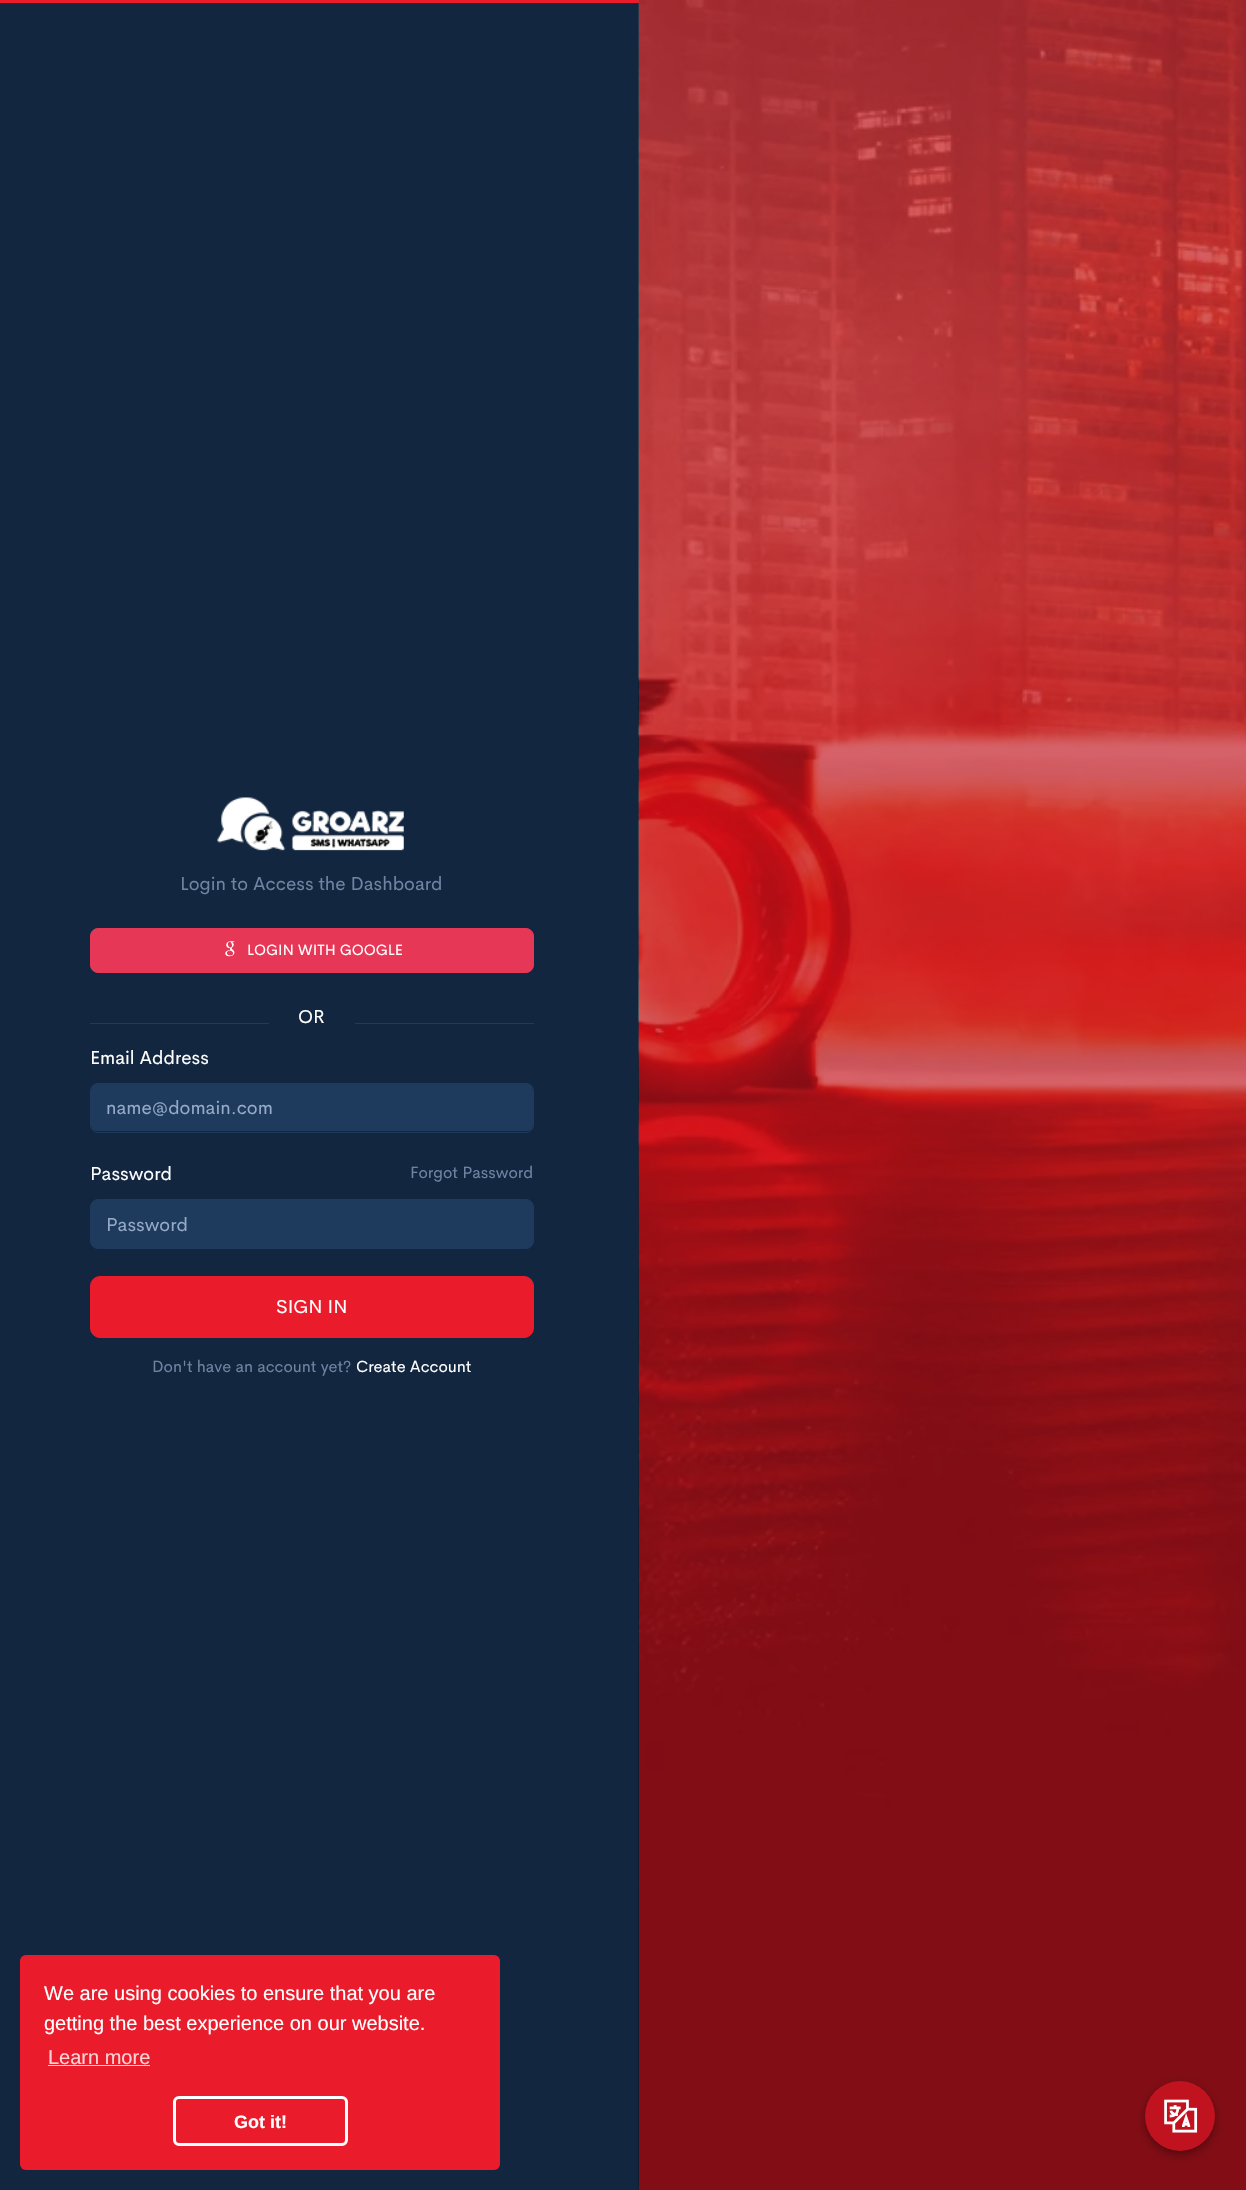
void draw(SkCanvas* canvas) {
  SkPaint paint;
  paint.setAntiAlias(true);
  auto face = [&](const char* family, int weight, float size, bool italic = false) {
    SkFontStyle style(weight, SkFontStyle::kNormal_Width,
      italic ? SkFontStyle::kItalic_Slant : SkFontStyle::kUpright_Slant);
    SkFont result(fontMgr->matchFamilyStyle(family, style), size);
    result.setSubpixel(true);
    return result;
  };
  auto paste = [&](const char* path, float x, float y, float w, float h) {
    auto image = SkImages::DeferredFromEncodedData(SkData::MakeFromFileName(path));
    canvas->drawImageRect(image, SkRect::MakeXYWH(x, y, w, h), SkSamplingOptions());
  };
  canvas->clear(0xff12263f);
  paint.setColor(0xffea1c2b);
  canvas->drawRect(SkRect::MakeXYWH(0, 0, 639, 3), paint);
  paste("img/1.png", 217, 797, 187, 54);
  paint.setColor(0xffe63757);
  canvas->drawRoundRect(SkRect::MakeXYWH(90.5f, 928.5f, 443, 44), 7.5f, 7.5f, paint);
  paint.setStroke(true);
  paint.setStrokeWidth(1);
  canvas->drawRoundRect(SkRect::MakeXYWH(90.5f, 928.5f, 443, 44), 7.5f, 7.5f, paint);
  paste("img/2.png", 225, 941, 10, 16);
  paint.setStroke(false);
  paint.setColor(0xff1e3a5c);
  canvas->drawRect(SkRect::MakeXYWH(90, 1023, 179, 1), paint);
  canvas->drawRect(SkRect::MakeXYWH(355, 1023, 179, 1), paint);
  canvas->drawRoundRect(SkRect::MakeXYWH(91, 1084, 442, 47), 6, 6, paint);
  paint.setStroke(true);
  canvas->drawRoundRect(SkRect::MakeXYWH(90.5f, 1083.5f, 443, 49), 7.5f, 7.5f, paint);
  paint.setStroke(false);
  canvas->drawRoundRect(SkRect::MakeXYWH(91, 1200, 442, 48), 6, 6, paint);
  paint.setStroke(true);
  canvas->drawRoundRect(SkRect::MakeXYWH(90.5f, 1199.5f, 443, 49), 7.5f, 7.5f, paint);
  paint.setStroke(false);
  paint.setColor(0xffea1c2b);
  canvas->drawRoundRect(SkRect::MakeXYWH(90.5f, 1276.5f, 443, 61), 9.5f, 9.5f, paint);
  paint.setStroke(true);
  canvas->drawRoundRect(SkRect::MakeXYWH(90.5f, 1276.5f, 443, 61), 9.5f, 9.5f, paint);
  paste("img/3.png", 638, 0, 608, 2190);
  paint.setStroke(false);
  canvas->drawRoundRect(SkRect::MakeXYWH(20, 1955, 480, 215), 6, 6, paint);
  paint.setColor(0xfffbd2d5);
  canvas->drawRect(SkRect::MakeXYWH(48, 2065, 102, 1), paint);
  paint.setStroke(true);
  paint.setStrokeWidth(3);
  paint.setColor(0xffffffff);
  canvas->drawRoundRect(SkRect::MakeXYWH(174.5f, 2097.5f, 172, 47), 4.5f, 4.5f, paint);
  paint.setStroke(false);
  paint.setColor(0x47000000);
  paint.setMaskFilter(SkMaskFilter::MakeBlur(kNormal_SkBlurStyle, 5));
  canvas->drawRoundRect(SkRect::MakeXYWH(1145, 2086, 70, 70), 35, 35, paint);
  paint.setMaskFilter(nullptr);
  paint.setColor(0x24000000);
  paint.setMaskFilter(SkMaskFilter::MakeBlur(kNormal_SkBlurStyle, 2.5f));
  canvas->drawRoundRect(SkRect::MakeXYWH(1145, 2081, 70, 70), 35, 35, paint);
  paint.setMaskFilter(nullptr);
  paint.setColor(0xffc1121f);
  canvas->drawCircle(1180, 2116, 35, paint);
  paste("img/4.png", 1164, 2099, 34, 34);
  auto f0 = face("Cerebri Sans", 400, 18.75f);
  paint.setColor(0xff6e84a3);
  canvas->drawString("Login to Access the Dashboard", 180, 890, f0, paint);
  auto f1 = face("Cerebri Sans", 400, 15);
  paint.setColor(0xffffffff);
  canvas->drawString("LOGIN WITH GOOGLE", 247, 955, f1, paint);
  canvas->drawString("OR", 298, 1023, f0, paint);
  canvas->drawString("Email Address", 90, 1064, f0, paint);
  paint.setColor(0xff95aac9);
  canvas->drawString("name@domain.com", 106, 1114, f0, paint);
  paint.setColor(0xffffffff);
  canvas->drawString("Password", 90, 1180, f0, paint);
  auto f2 = face("Cerebri Sans", 400, 16.25f);
  paint.setColor(0xff6e84a3);
  canvas->drawString("Forgot Password", 410, 1178, f2, paint);
  paint.setColor(0xff95aac9);
  canvas->drawString("Password", 106, 1231, f0, paint);
  paint.setColor(0xffffffff);
  canvas->drawString("SIGN IN", 276, 1313, f0, paint);
  paint.setColor(0xff6e84a3);
  canvas->drawString("Don't have an account yet?", 152, 1372, f2, paint);
  paint.setColor(0xffffffff);
  canvas->drawString("Create Account", 356, 1372, f2, paint);
  auto f3 = face("Liberation Sans", 400, 20);
  canvas->drawString("We are using cookies to ensure that you are", 44, 2000, f3, paint);
  canvas->drawString("getting the best experience on our website.", 44, 2030, f3, paint);
  paint.setColor(0xfffbd2d5);
  canvas->drawString("Learn more", 48, 2064, f3, paint);
  auto f4 = face("Liberation Sans", 700, 18);
  paint.setColor(0xffffffff);
  canvas->drawString("Got it!", 234, 2128, f4, paint);
}
